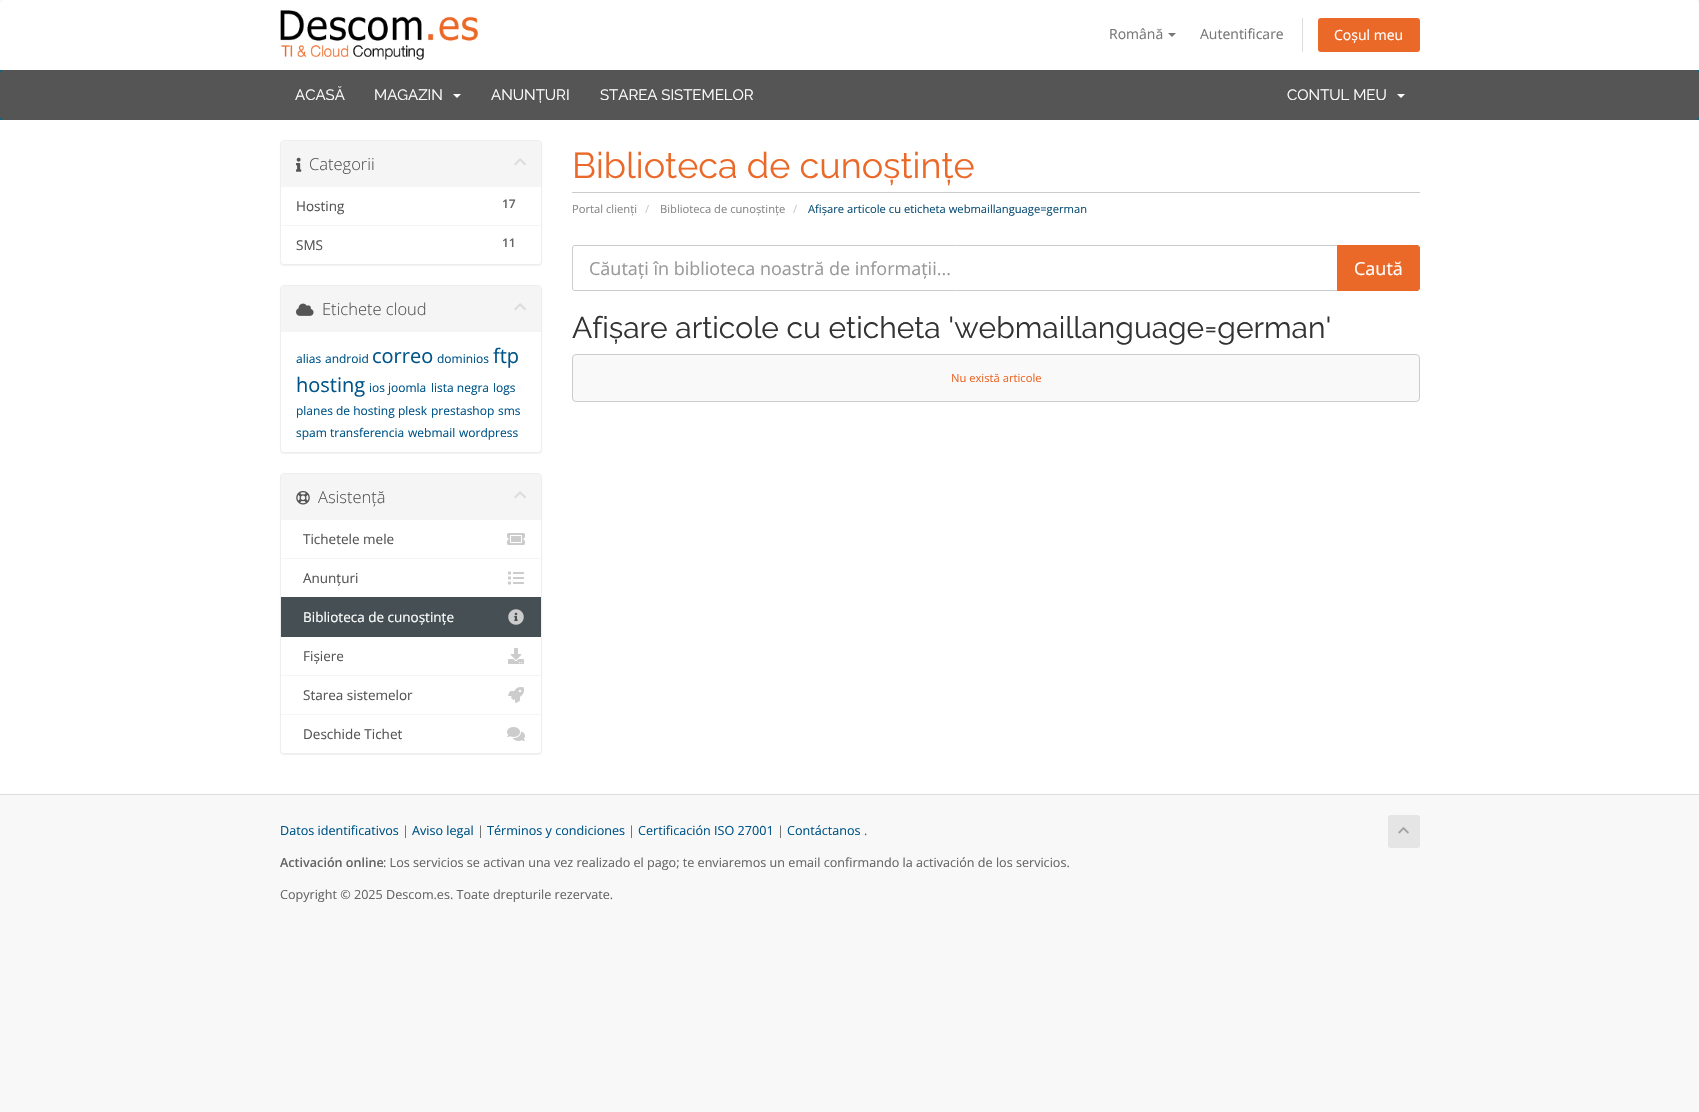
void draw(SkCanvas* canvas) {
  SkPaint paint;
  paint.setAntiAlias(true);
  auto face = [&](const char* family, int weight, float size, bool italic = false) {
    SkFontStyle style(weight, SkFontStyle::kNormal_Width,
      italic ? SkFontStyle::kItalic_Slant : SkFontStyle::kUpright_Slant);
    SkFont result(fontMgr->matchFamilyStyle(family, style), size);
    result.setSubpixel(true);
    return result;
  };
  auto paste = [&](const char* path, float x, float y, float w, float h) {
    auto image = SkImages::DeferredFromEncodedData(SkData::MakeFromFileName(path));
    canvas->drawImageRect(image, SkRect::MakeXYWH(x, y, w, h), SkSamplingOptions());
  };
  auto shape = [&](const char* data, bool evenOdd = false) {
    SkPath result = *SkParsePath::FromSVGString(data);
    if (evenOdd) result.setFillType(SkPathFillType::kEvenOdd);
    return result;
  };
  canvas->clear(0xfff8f8f8);
  paint.setColor(0xffffffff);
  canvas->drawPath(shape("M5 0H1694C1697 0 1699 2 1699 5V70H0V5C0 2 2 0 5 0Z"), paint);
  paste("img/1.png", 280, 10, 198, 50);
  paint.setColor(0xff777777);
  canvas->drawPath(shape("M1168 33H1176L1172 37Z"), paint);
  paint.setColor(0xffdddddd);
  canvas->drawRect(SkRect::MakeXYWH(1302, 18, 1, 34), paint);
  paint.setColor(0xffeb6928);
  canvas->drawRoundRect(SkRect::MakeXYWH(1318, 18, 102, 34), 3, 3, paint);
  paint.setColor(0xff006687);
  canvas->drawRect(SkRect::MakeXYWH(0, 70, 1699, 50), paint);
  paint.setColor(0xff555555);
  canvas->drawRoundRect(SkRect::MakeXYWH(0, 70, 1699, 50), 4, 4, paint);
  paint.setColor(0xffffffff);
  canvas->drawPath(shape("M453 94H461L457 98Z"), paint);
  canvas->drawPath(shape("M1397 94H1405L1401 98Z"), paint);
  canvas->drawRect(SkRect::MakeXYWH(0, 120, 1699, 674), paint);
  paint.setColor(0x0d000000);
  paint.setMaskFilter(SkMaskFilter::MakeBlur(kNormal_SkBlurStyle, 0.5f));
  canvas->drawRoundRect(SkRect::MakeXYWH(280, 141, 262, 125), 4, 4, paint);
  paint.setMaskFilter(nullptr);
  paint.setColor(0xffffffff);
  canvas->drawRoundRect(SkRect::MakeXYWH(280.5f, 140.5f, 261, 124), 3.5f, 3.5f, paint);
  paint.setStroke(true);
  paint.setStrokeWidth(1);
  paint.setColor(0xffeeeeee);
  canvas->drawRoundRect(SkRect::MakeXYWH(280.5f, 140.5f, 261, 124), 3.5f, 3.5f, paint);
  paint.setStroke(false);
  paint.setColor(0xfff5f5f5);
  canvas->drawPath(shape("M284 141H538C539.5 141 541 142.5 541 144V187H281V144C281 142.5 282.5 141 284 141Z"), paint);
  paste("img/2.png", 296, 157, 6, 15);
  paste("img/3.png", 514, 158, 12, 8);
  paint.setColor(0xffffffff);
  canvas->drawPath(shape("M281 225H541V261C541 262.5 539.5 264 538 264H284C282.5 264 281 262.5 281 261Z"), paint);
  paint.setColor(0xfff5f5f5);
  canvas->drawRect(SkRect::MakeXYWH(281, 225, 260, 1), paint);
  paint.setColor(0xffcccccc);
  canvas->drawRect(SkRect::MakeXYWH(572, 192, 848, 1), paint);
  paint.setColor(0x0d000000);
  paint.setMaskFilter(SkMaskFilter::MakeBlur(kNormal_SkBlurStyle, 0.5f));
  canvas->drawRoundRect(SkRect::MakeXYWH(280, 286, 262, 168), 4, 4, paint);
  paint.setMaskFilter(nullptr);
  paint.setColor(0xffffffff);
  canvas->drawRoundRect(SkRect::MakeXYWH(280.5f, 285.5f, 261, 167), 3.5f, 3.5f, paint);
  paint.setStroke(true);
  paint.setColor(0xffeeeeee);
  canvas->drawRoundRect(SkRect::MakeXYWH(280.5f, 285.5f, 261, 167), 3.5f, 3.5f, paint);
  paint.setStroke(false);
  paint.setColor(0xfff5f5f5);
  canvas->drawPath(shape("M284 286H538C539.5 286 541 287.5 541 289V332H281V289C281 287.5 282.5 286 284 286Z"), paint);
  paste("img/4.png", 296, 303, 18, 13);
  paste("img/3.png", 514, 303, 12, 8);
  paint.setColor(0x0d000000);
  paint.setMaskFilter(SkMaskFilter::MakeBlur(kNormal_SkBlurStyle, 0.5f));
  canvas->drawRoundRect(SkRect::MakeXYWH(280, 474, 262, 281), 4, 4, paint);
  paint.setMaskFilter(nullptr);
  paint.setColor(0xffffffff);
  canvas->drawRoundRect(SkRect::MakeXYWH(280.5f, 473.5f, 261, 280), 3.5f, 3.5f, paint);
  paint.setStroke(true);
  paint.setColor(0xffeeeeee);
  canvas->drawRoundRect(SkRect::MakeXYWH(280.5f, 473.5f, 261, 280), 3.5f, 3.5f, paint);
  paint.setStroke(false);
  paint.setColor(0xfff5f5f5);
  canvas->drawPath(shape("M284 474H538C539.5 474 541 475.5 541 477V520H281V477C281 475.5 282.5 474 284 474Z"), paint);
  paste("img/5.png", 296, 491, 14, 14);
  paste("img/3.png", 514, 491, 12, 8);
  canvas->drawRect(SkRect::MakeXYWH(281, 558, 260, 1), paint);
  paste("img/6.png", 507, 533, 18, 12);
  paste("img/7.png", 508, 571, 16, 14);
  paint.setColor(0xff465054);
  canvas->drawRect(SkRect::MakeXYWH(281, 597, 260, 40), paint);
  paste("img/8.png", 508, 609, 16, 16);
  paint.setColor(0xfff5f5f5);
  canvas->drawRect(SkRect::MakeXYWH(281, 675, 260, 1), paint);
  paste("img/9.png", 508, 648, 16, 16);
  paste("img/10.png", 508, 687, 16, 16);
  paint.setColor(0xffffffff);
  canvas->drawPath(shape("M281 714H541V750C541 751.5 539.5 753 538 753H284C282.5 753 281 751.5 281 750Z"), paint);
  paint.setColor(0xfff5f5f5);
  canvas->drawRect(SkRect::MakeXYWH(281, 714, 260, 1), paint);
  paste("img/11.png", 507, 727, 18, 14);
  paint.setStroke(true);
  paint.setColor(0xffcccccc);
  canvas->drawPath(shape("M575 245.5H1337.5V290.5H575C573.5 290.5 572.5 289.5 572.5 288V248C572.5 246.5 573.5 245.5 575 245.5Z"), paint);
  paint.setStroke(false);
  paint.setColor(0xffeb6928);
  canvas->drawPath(shape("M1337.5 245.5H1417C1418.5 245.5 1419.5 246.5 1419.5 248V288C1419.5 289.5 1418.5 290.5 1417 290.5H1337.5Z"), paint);
  paint.setStroke(true);
  canvas->drawPath(shape("M1337.5 245.5H1417C1418.5 245.5 1419.5 246.5 1419.5 248V288C1419.5 289.5 1418.5 290.5 1417 290.5H1337.5Z"), paint);
  paint.setStroke(false);
  paint.setColor(0xfff9f9f9);
  canvas->drawRoundRect(SkRect::MakeXYWH(572.5f, 354.5f, 847, 47), 3.5f, 3.5f, paint);
  paint.setStroke(true);
  paint.setColor(0xffcccccc);
  canvas->drawRoundRect(SkRect::MakeXYWH(572.5f, 354.5f, 847, 47), 3.5f, 3.5f, paint);
  paint.setStroke(false);
  paint.setColor(0xffdddddd);
  canvas->drawRect(SkRect::MakeXYWH(0, 794, 1699, 1), paint);
  paint.setColor(0xffe5e5e5);
  canvas->drawRoundRect(SkRect::MakeXYWH(1388, 815, 32, 33), 3, 3, paint);
  paste("img/12.png", 1398, 827, 11, 7);
  auto f0 = face("Open Sans", 400, 14);
  paint.setColor(0xff777777);
  canvas->drawString("Română", 1109, 39, f0, paint);
  canvas->drawString("Autentificare", 1200, 39, f0, paint);
  paint.setColor(0xffffffff);
  canvas->drawString("Coșul meu", 1334, 40, f0, paint);
  auto f1 = face("Raleway", 400, 15);
  {
    const struct { const char* s; float x, y; } items[] = {
      {"ACASĂ", 295, 100},
      {"MAGAZIN", 374, 100},
      {"ANUNȚURI", 491, 100},
      {"STAREA SISTEMELOR", 600, 100},
      {"CONTUL MEU", 1287, 100},
    };
    for (auto [s, x, y] : items) {
      canvas->drawString(s, x, y, f1, paint);
    }
  }
  auto f2 = face("Open Sans", 300, 16.5f);
  paint.setColor(0xff555555);
  canvas->drawString("Categorii", 309, 170, f2, paint);
  auto f3 = face("Open Sans", 400, 13.5f);
  canvas->drawString("Hosting", 296, 211, f3, paint);
  auto f4 = face("Open Sans", 600, 12);
  paint.setColor(0xff666666);
  canvas->drawString("17", 502, 208, f4, paint);
  paint.setColor(0xff555555);
  canvas->drawString("SMS", 296, 250, f3, paint);
  paint.setColor(0xff666666);
  canvas->drawString("11", 502, 247, f4, paint);
  auto f5 = face("Raleway", 400, 36);
  paint.setColor(0xffeb6928);
  canvas->drawString("Biblioteca de cunoștințe", 572, 178, f5, paint);
  auto f6 = face("Open Sans", 400, 11.2f);
  paint.setColor(0xff888888);
  canvas->drawString("Portal clienți", 572, 213, f6, paint);
  paint.setColor(0xffcccccc);
  canvas->drawString("/", 645, 213, f6, paint);
  paint.setColor(0xff888888);
  canvas->drawString("Biblioteca de cunoștințe", 660, 213, f6, paint);
  paint.setColor(0xffcccccc);
  canvas->drawString("/", 793, 213, f6, paint);
  paint.setColor(0xff0e5077);
  canvas->drawString("Afișare articole cu eticheta webmaillanguage=german", 808, 213, f6, paint);
  paint.setColor(0xff555555);
  canvas->drawString("Etichete cloud", 322, 315, f2, paint);
  auto f7 = face("Open Sans", 400, 12);
  paint.setColor(0xff005588);
  canvas->drawString("alias", 296, 363, f7, paint);
  canvas->drawString("android", 325, 363, f7, paint);
  auto f8 = face("Open Sans", 400, 20);
  canvas->drawString("correo", 372, 363, f8, paint);
  canvas->drawString("dominios", 437, 363, f7, paint);
  canvas->drawString("ftp", 493, 363, f8, paint);
  canvas->drawString("hosting", 296, 392, f8, paint);
  {
    const struct { const char* s; float x, y; } items[] = {
      {"ios", 369, 392},
      {"joomla", 388, 392},
      {"lista negra", 431, 392},
      {"logs", 493, 392},
      {"planes de hosting", 296, 415},
      {"plesk", 398, 415},
      {"prestashop", 431, 415},
      {"sms", 498, 415},
      {"spam", 296, 437},
      {"transferencia", 330, 437},
      {"webmail", 408, 437},
      {"wordpress", 459, 437},
    };
    for (auto [s, x, y] : items) {
      canvas->drawString(s, x, y, f7, paint);
    }
  }
  paint.setColor(0xff555555);
  canvas->drawString("Asistență", 318, 503, f2, paint);
  canvas->drawString("Tichetele mele", 303, 544, f3, paint);
  canvas->drawString("Anunțuri", 303, 583, f3, paint);
  paint.setColor(0xffffffff);
  canvas->drawString("Biblioteca de cunoștințe", 303, 622, f3, paint);
  paint.setColor(0xff555555);
  {
    const struct { const char* s; float x, y; } items[] = {
      {"Fișiere", 303, 661},
      {"Starea sistemelor", 303, 700},
      {"Deschide Tichet", 303, 739},
    };
    for (auto [s, x, y] : items) {
      canvas->drawString(s, x, y, f3, paint);
    }
  }
  auto f9 = face("Open Sans", 400, 18);
  paint.setColor(0xff999999);
  canvas->drawString("Căutați în biblioteca noastră de informații...", 589, 275, f9, paint);
  paint.setColor(0xffffffff);
  canvas->drawString("Caută", 1354, 275, f9, paint);
  auto f10 = face("Raleway", 400, 30);
  paint.setColor(0xff333333);
  canvas->drawString("Afișare articole cu eticheta 'webmaillanguage=german'", 572, 338, f10, paint);
  paint.setColor(0xffeb6928);
  canvas->drawString("Nu există articole", 951, 382, f6, paint);
  auto f11 = face("Open Sans", 400, 12.6f);
  paint.setColor(0xff005588);
  canvas->drawString("Datos identificativos", 280, 835, f11, paint);
  paint.setColor(0xff666666);
  canvas->drawString("|", 402, 835, f11, paint);
  paint.setColor(0xff005588);
  canvas->drawString("Aviso legal", 412, 835, f11, paint);
  paint.setColor(0xff666666);
  canvas->drawString("|", 477, 835, f11, paint);
  paint.setColor(0xff005588);
  canvas->drawString("Términos y condiciones", 487, 835, f11, paint);
  paint.setColor(0xff666666);
  canvas->drawString("|", 628, 835, f11, paint);
  paint.setColor(0xff005588);
  canvas->drawString("Certificación ISO 27001", 638, 835, f11, paint);
  paint.setColor(0xff666666);
  canvas->drawString("|", 777, 835, f11, paint);
  paint.setColor(0xff005588);
  canvas->drawString("Contáctanos", 787, 835, f11, paint);
  paint.setColor(0xff666666);
  canvas->drawString(".", 864, 835, f11, paint);
  auto f12 = face("Open Sans", 600, 12.6f);
  canvas->drawString("Activación online", 280, 867, f12, paint);
  canvas->drawString(": Los servicios se activan una vez realizado el pago; te enviaremos un email confirmando la activación de los servicios.", 383, 867, f11, paint);
  canvas->drawString("Copyright © 2025 Descom.es. Toate drepturile rezervate.", 280, 899, f11, paint);
}
